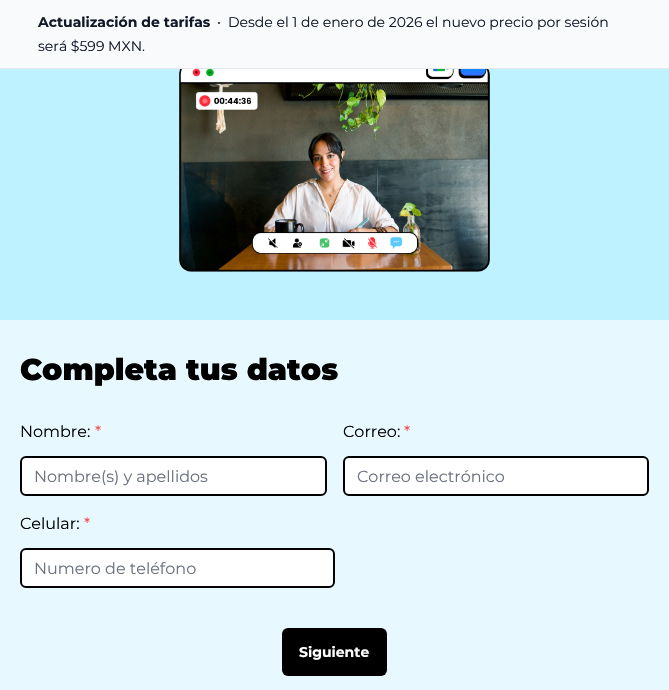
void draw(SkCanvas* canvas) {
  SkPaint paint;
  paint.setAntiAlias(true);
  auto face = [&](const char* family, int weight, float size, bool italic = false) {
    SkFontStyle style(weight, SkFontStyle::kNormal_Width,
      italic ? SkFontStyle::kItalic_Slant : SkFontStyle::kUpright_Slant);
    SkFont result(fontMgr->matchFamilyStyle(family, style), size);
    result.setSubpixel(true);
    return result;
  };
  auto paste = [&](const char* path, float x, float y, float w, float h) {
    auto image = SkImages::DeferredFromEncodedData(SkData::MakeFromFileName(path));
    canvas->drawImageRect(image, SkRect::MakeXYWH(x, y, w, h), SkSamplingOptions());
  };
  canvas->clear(0xffe7f9ff);
  paint.setColor(0xfff9fafb);
  canvas->drawRect(SkRect::MakeXYWH(0, 0, 669, 68), paint);
  paint.setColor(0xffe5e7eb);
  canvas->drawRect(SkRect::MakeXYWH(0, 68, 669, 1), paint);
  paint.setColor(0xff111827);
  canvas->drawCircle(219, 23, 1, paint);
  paint.setColor(0xffbef2ff);
  canvas->drawRect(SkRect::MakeXYWH(0, 69, 669, 251), paint);
  paste("img/1.png", 179, 69, 311, 203);
  paint.setColor(0xffffffff);
  canvas->drawRoundRect(SkRect::MakeXYWH(21, 457, 305, 38), 5, 5, paint);
  paint.setStroke(true);
  paint.setStrokeWidth(2);
  paint.setColor(0xff000000);
  canvas->drawRoundRect(SkRect::MakeXYWH(21, 457, 305, 38), 5, 5, paint);
  paint.setStroke(false);
  paint.setColor(0xffffffff);
  canvas->drawRoundRect(SkRect::MakeXYWH(344, 457, 304, 38), 5, 5, paint);
  paint.setStroke(true);
  paint.setColor(0xff000000);
  canvas->drawRoundRect(SkRect::MakeXYWH(344, 457, 304, 38), 5, 5, paint);
  paint.setStroke(false);
  paint.setColor(0xffffffff);
  canvas->drawRoundRect(SkRect::MakeXYWH(21, 549, 313, 38), 5, 5, paint);
  paint.setStroke(true);
  paint.setColor(0xff000000);
  canvas->drawRoundRect(SkRect::MakeXYWH(21, 549, 313, 38), 5, 5, paint);
  paint.setStroke(false);
  canvas->drawRoundRect(SkRect::MakeXYWH(282, 628, 105, 48), 6, 6, paint);
  auto f0 = face("Montserrat", 700, 14);
  paint.setColor(0xff111827);
  canvas->drawString("Actualización de tarifas", 38, 27, f0, paint);
  auto f1 = face("Montserrat", 400, 14);
  canvas->drawString("Desde el 1 de enero de 2026 el nuevo precio por sesión", 228, 27, f1, paint);
  canvas->drawString("será $599 MXN.", 38, 51, f1, paint);
  auto f2 = face("Montserrat", 900, 30);
  paint.setColor(0xff000000);
  canvas->drawString("Completa tus datos", 20, 380, f2, paint);
  auto f3 = face("Montserrat", 400, 16);
  canvas->drawString("Nombre:", 20, 437, f3, paint);
  paint.setColor(0xffef4444);
  canvas->drawString("*", 95, 437, f3, paint);
  paint.setColor(0xff6b7280);
  canvas->drawString("Nombre(s) y apellidos", 34, 482, f3, paint);
  paint.setColor(0xff000000);
  canvas->drawString("Correo:", 343, 437, f3, paint);
  paint.setColor(0xffef4444);
  canvas->drawString("*", 404, 437, f3, paint);
  paint.setColor(0xff6b7280);
  canvas->drawString("Correo electrónico", 357, 482, f3, paint);
  paint.setColor(0xff000000);
  canvas->drawString("Celular:", 20, 529, f3, paint);
  paint.setColor(0xffef4444);
  canvas->drawString("*", 84, 529, f3, paint);
  paint.setColor(0xff6b7280);
  canvas->drawString("Numero de teléfono", 34, 574, f3, paint);
  paint.setColor(0xffffffff);
  canvas->drawString("Siguiente", 299, 657, f0, paint);
}
